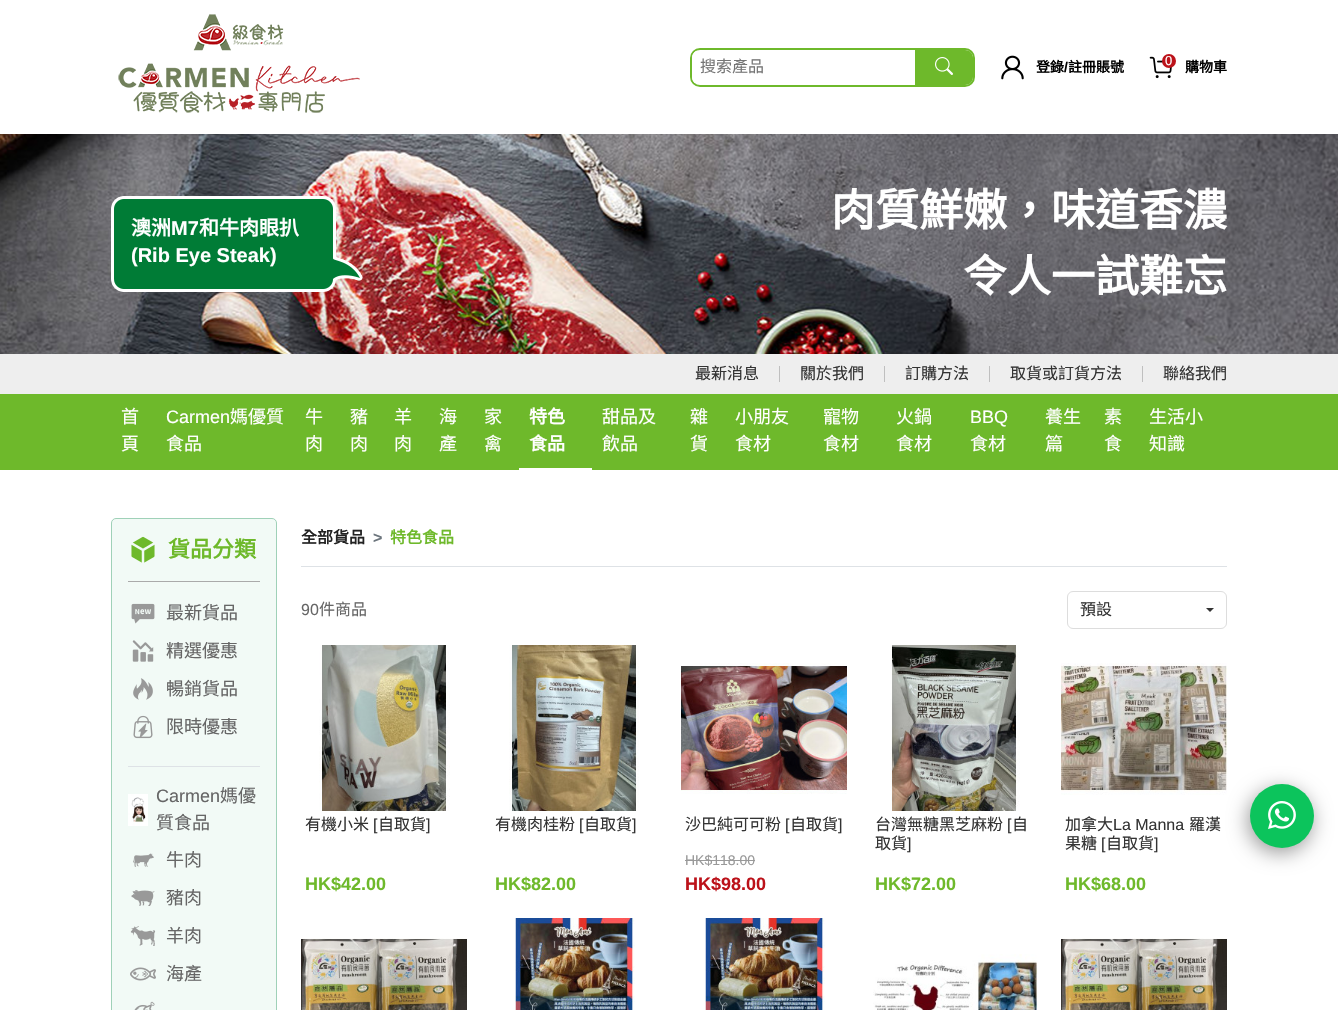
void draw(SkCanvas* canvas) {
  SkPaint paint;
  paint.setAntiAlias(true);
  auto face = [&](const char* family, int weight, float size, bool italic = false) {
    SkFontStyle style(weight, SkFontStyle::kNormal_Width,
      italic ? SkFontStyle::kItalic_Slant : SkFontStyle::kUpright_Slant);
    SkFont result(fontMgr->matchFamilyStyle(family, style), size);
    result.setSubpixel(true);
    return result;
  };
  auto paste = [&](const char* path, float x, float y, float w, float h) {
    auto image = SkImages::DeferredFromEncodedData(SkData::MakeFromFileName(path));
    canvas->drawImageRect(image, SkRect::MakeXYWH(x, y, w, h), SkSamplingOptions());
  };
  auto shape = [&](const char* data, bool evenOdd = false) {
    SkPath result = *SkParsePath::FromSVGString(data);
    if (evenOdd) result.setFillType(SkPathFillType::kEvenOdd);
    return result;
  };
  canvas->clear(0xffffffff);
  paste("img/1.png", 118, 14, 242, 99);
  paint.setStroke(true);
  paint.setStrokeWidth(2);
  paint.setColor(0xff6eb92b);
  canvas->drawRoundRect(SkRect::MakeXYWH(691, 49, 283, 37), 9, 9, paint);
  canvas->save();
  canvas->clipPath(shape("M700 50H965C969.5 50 973 53.5 973 58V77C973 81.5 969.5 85 965 85H700C695.5 85 692 81.5 692 77V58C692 53.5 695.5 50 700 50Z"), true);
  paint.setStroke(false);
  paint.setColor(0xffffffff);
  canvas->drawRect(SkRect::MakeXYWH(692, 51, 223, 32), paint);
  canvas->restore();
  paint.setColor(0xff6eb92b);
  canvas->drawPath(shape("M915 50H965C969.5 50 973 53.5 973 58V77C973 81.5 969.5 85 965 85H915Z"), paint);
  paste("img/2.png", 935, 57, 18, 18);
  paste("img/3.png", 1001, 55, 23, 25);
  paste("img/4.png", 1149, 56, 23, 23);
  paint.setColor(0xffbc121a);
  canvas->drawCircle(1169, 61, 7, paint);
  paste("img/5.png", 0, 134, 1338, 220);
  paste("img/6.png", 111, 196, 252, 96);
  {
    const struct { float x, y, w, h; SkColor color; } items[] = {
      {0, 354, 1338, 40, 0xffeeeeee},
      {779, 366, 1, 16, 0xffbfbfbf},
      {884, 366, 1, 16, 0xffbfbfbf},
      {989, 366, 1, 16, 0xffbfbfbf},
      {1142, 366, 1, 16, 0xffbfbfbf},
      {0, 394, 1338, 76, 0xff6eb92b},
      {519, 468, 73, 2, 0xffffffff},
    };
    for (auto [x, y, w, h, color] : items) {
      paint.setColor(color);
      canvas->drawRect(SkRect::MakeXYWH(x, y, w, h), paint);
    }
  }
  paint.setColor(0xfff2faf6);
  canvas->drawRoundRect(SkRect::MakeXYWH(111.5f, 518.5f, 165, 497), 4.5f, 4.5f, paint);
  paint.setStroke(true);
  paint.setStrokeWidth(1);
  paint.setColor(0xff9fd1b8);
  canvas->drawRoundRect(SkRect::MakeXYWH(111.5f, 518.5f, 165, 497), 4.5f, 4.5f, paint);
  paint.setStroke(false);
  paint.setColor(0xffaaaaaa);
  canvas->drawRect(SkRect::MakeXYWH(128, 581, 132, 1), paint);
  paste("img/7.png", 131, 536, 24, 27);
  paint.setColor(0xffdee2e6);
  canvas->drawRect(SkRect::MakeXYWH(128, 766, 132, 1), paint);
  paste("img/8.png", 131, 603, 24, 21);
  paste("img/9.png", 132, 640, 22, 22);
  paste("img/10.png", 133, 678, 20, 22);
  paste("img/11.png", 133, 715, 20, 24);
  paste("img/12.png", 128, 794, 20, 32);
  paste("img/13.png", 133, 853, 21, 14);
  paste("img/14.png", 131, 890, 24, 16);
  paste("img/15.png", 130, 926, 26, 20);
  paste("img/16.png", 130, 967, 26, 14);
  paste("img/17.png", 134, 1001, 21, 9);
  canvas->drawRect(SkRect::MakeXYWH(301, 566, 926, 1), paint);
  paint.setStroke(true);
  paint.setColor(0xffdddddd);
  canvas->drawRoundRect(SkRect::MakeXYWH(1067.5f, 591.5f, 159, 37), 5.5f, 5.5f, paint);
  paint.setStroke(false);
  paint.setColor(0xff333333);
  canvas->drawPath(shape("M1206 608H1214L1210 612Z"), paint);
  paste("img/18.png", 319, 645, 131, 166);
  paste("img/19.png", 509, 645, 130, 166);
  paste("img/20.png", 681, 663, 166, 131);
  paint.setColor(0xff999999);
  canvas->drawRect(SkRect::MakeXYWH(685, 860, 70, 1), paint);
  paste("img/21.png", 890, 645, 130, 166);
  paste("img/22.png", 1061, 663, 166, 132);
  paste("img/23.png", 301, 938, 166, 72);
  paste("img/24.png", 515, 918, 120, 92);
  paste("img/25.png", 705, 918, 120, 92);
  paste("img/26.png", 873, 954, 164, 56);
  paste("img/23.png", 1061, 938, 166, 72);
  paint.setColor(0x66000000);
  paint.setMaskFilter(SkMaskFilter::MakeBlur(kNormal_SkBlurStyle, 10));
  canvas->drawRoundRect(SkRect::MakeXYWH(1248, 789, 64, 64), 32, 32, paint);
  paint.setMaskFilter(nullptr);
  paint.setColor(0xff0cc45c);
  canvas->drawCircle(1282, 816, 32, paint);
  paste("img/27.png", 1268, 801, 28, 28);
  auto f0 = face("Noto Sans CJK HK", 400, 16);
  paint.setColor(0xff757575);
  canvas->drawString("搜索產品", 700, 72, f0, paint);
  auto f1 = face("Noto Sans CJK HK", 700, 14);
  paint.setColor(0xff000000);
  canvas->drawString("登錄", 1036, 72, f1, paint);
  auto f2 = face("Liberation Sans", 700, 14);
  canvas->drawString("/", 1064, 72, f2, paint);
  canvas->drawString("註冊賬號", 1068, 72, f1, paint);
  auto f3 = face("Liberation Sans", 400, 13);
  paint.setColor(0xffffffff);
  canvas->drawString("0", 1165, 65, f3, paint);
  paint.setColor(0xff000000);
  canvas->drawString("購物車", 1185, 72, f1, paint);
  auto f4 = face("Noto Sans CJK HK", 700, 20);
  paint.setColor(0xffffffff);
  canvas->drawString("澳洲", 131, 235, f4, paint);
  auto f5 = face("Liberation Sans", 700, 20);
  canvas->drawString("M7", 171, 235, f5, paint);
  canvas->drawString("和牛肉眼扒", 199, 235, f4, paint);
  canvas->drawString("(Rib Eye Steak)", 131, 262, f5, paint);
  auto f6 = face("Noto Sans CJK HK", 700, 44);
  canvas->drawString("肉質鮮嫩，味道香濃", 831, 226, f6, paint);
  canvas->drawString("令人一試難忘", 963, 292, f6, paint);
  paint.setColor(0xff333333);
  {
    const struct { const char* s; float x, y; } items[] = {
      {"最新消息", 695, 379},
      {"關於我們", 800, 379},
      {"訂購方法", 905, 379},
      {"取貨或訂貨方法", 1010, 379},
      {"聯絡我們", 1163, 379},
    };
    for (auto [s, x, y] : items) {
      canvas->drawString(s, x, y, f0, paint);
    }
  }
  auto f7 = face("Noto Sans CJK HK", 400, 18);
  paint.setColor(0xffffffff);
  canvas->drawString("首", 121, 423, f7, paint);
  canvas->drawString("頁", 121, 450, f7, paint);
  auto f8 = face("Liberation Sans", 400, 18);
  canvas->drawString("Carmen", 166, 423, f8, paint);
  {
    const struct { const char* s; float x, y; } items[] = {
      {"媽優質", 230, 423},
      {"食品", 166, 450},
      {"牛", 305, 423},
      {"肉", 305, 450},
      {"豬", 350, 423},
      {"肉", 350, 450},
      {"羊", 394, 423},
      {"肉", 394, 450},
      {"海", 439, 423},
      {"產", 439, 450},
      {"家", 484, 423},
      {"禽", 484, 450},
    };
    for (auto [s, x, y] : items) {
      canvas->drawString(s, x, y, f7, paint);
    }
  }
  auto f9 = face("Noto Sans CJK HK", 700, 18);
  canvas->drawString("特色", 529, 423, f9, paint);
  canvas->drawString("食品", 529, 450, f9, paint);
  {
    const struct { const char* s; float x, y; } items[] = {
      {"甜品及", 602, 423},
      {"飲品", 602, 450},
      {"雜", 690, 423},
      {"貨", 690, 450},
      {"小朋友", 735, 423},
      {"食材", 735, 450},
      {"寵物", 823, 423},
      {"食材", 823, 450},
      {"火鍋", 896, 423},
      {"食材", 896, 450},
    };
    for (auto [s, x, y] : items) {
      canvas->drawString(s, x, y, f7, paint);
    }
  }
  canvas->drawString("BBQ", 970, 423, f8, paint);
  {
    const struct { const char* s; float x, y; } items[] = {
      {"食材", 970, 450},
      {"養生", 1045, 423},
      {"篇", 1045, 450},
      {"素", 1104, 423},
      {"食", 1104, 450},
      {"生活小", 1149, 423},
      {"知識", 1149, 450},
    };
    for (auto [s, x, y] : items) {
      canvas->drawString(s, x, y, f7, paint);
    }
  }
  auto f10 = face("Noto Sans CJK HK", 700, 22);
  paint.setColor(0xff6eb92b);
  canvas->drawString("貨品分類", 168, 557, f10, paint);
  paint.setColor(0xff666666);
  {
    const struct { const char* s; float x, y; } items[] = {
      {"最新貨品", 166, 619},
      {"精選優惠", 166, 657},
      {"暢銷貨品", 166, 695},
      {"限時優惠", 166, 733},
    };
    for (auto [s, x, y] : items) {
      canvas->drawString(s, x, y, f7, paint);
    }
  }
  canvas->drawString("Carmen", 156, 802, f8, paint);
  {
    const struct { const char* s; float x, y; } items[] = {
      {"媽優", 220, 802},
      {"質食品", 156, 829},
      {"牛肉", 166, 866},
      {"豬肉", 166, 904},
      {"羊肉", 166, 942},
      {"海產", 166, 980},
    };
    for (auto [s, x, y] : items) {
      canvas->drawString(s, x, y, f7, paint);
    }
  }
  auto f11 = face("Noto Sans CJK HK", 700, 16);
  paint.setColor(0xff222222);
  canvas->drawString("全部貨品", 301, 543, f11, paint);
  auto f12 = face("Liberation Sans", 700, 16);
  paint.setColor(0xff6c757d);
  canvas->drawString(">", 373, 543, f12, paint);
  paint.setColor(0xff6eb92b);
  canvas->drawString("特色食品", 390, 543, f11, paint);
  auto f13 = face("Liberation Sans", 400, 16);
  paint.setColor(0xff666666);
  canvas->drawString("90", 301, 615, f13, paint);
  canvas->drawString("件商品", 319, 615, f0, paint);
  paint.setColor(0xff333333);
  canvas->drawString("預設", 1080, 615, f0, paint);
  canvas->drawString("有機小米", 305, 830, f0, paint);
  canvas->drawString("[", 373, 830, f13, paint);
  canvas->drawString("自取貨", 378, 830, f0, paint);
  canvas->drawString("]", 426, 830, f13, paint);
  auto f14 = face("Liberation Sans", 700, 18);
  paint.setColor(0xff6eb92b);
  canvas->drawString("HK$42.00", 305, 890, f14, paint);
  paint.setColor(0xff333333);
  canvas->drawString("有機肉桂粉", 495, 830, f0, paint);
  canvas->drawString("[", 579, 830, f13, paint);
  canvas->drawString("自取貨", 584, 830, f0, paint);
  canvas->drawString("]", 632, 830, f13, paint);
  paint.setColor(0xff6eb92b);
  canvas->drawString("HK$82.00", 495, 890, f14, paint);
  paint.setColor(0xff333333);
  canvas->drawString("沙巴純可可粉", 685, 830, f0, paint);
  canvas->drawString("[", 785, 830, f13, paint);
  canvas->drawString("自取貨", 790, 830, f0, paint);
  canvas->drawString("]", 838, 830, f13, paint);
  auto f15 = face("Liberation Sans", 400, 14);
  paint.setColor(0xff999999);
  canvas->drawString("HK$118.00", 685, 865, f15, paint);
  paint.setColor(0xffbc121a);
  canvas->drawString("HK$98.00", 685, 890, f14, paint);
  paint.setColor(0xff333333);
  canvas->drawString("台灣無糖黑芝麻粉", 875, 830, f0, paint);
  canvas->drawString("[", 1007, 830, f13, paint);
  canvas->drawString("自", 1012, 830, f0, paint);
  canvas->drawString("取貨", 875, 849, f0, paint);
  canvas->drawString("]", 907, 849, f13, paint);
  paint.setColor(0xff6eb92b);
  canvas->drawString("HK$72.00", 875, 890, f14, paint);
  paint.setColor(0xff333333);
  canvas->drawString("加拿大", 1065, 830, f0, paint);
  canvas->drawString("La Manna", 1113, 830, f13, paint);
  canvas->drawString("羅漢", 1189, 830, f0, paint);
  canvas->drawString("果糖", 1065, 849, f0, paint);
  canvas->drawString("[", 1101, 849, f13, paint);
  canvas->drawString("自取貨", 1106, 849, f0, paint);
  canvas->drawString("]", 1154, 849, f13, paint);
  paint.setColor(0xff6eb92b);
  canvas->drawString("HK$68.00", 1065, 890, f14, paint);
}
